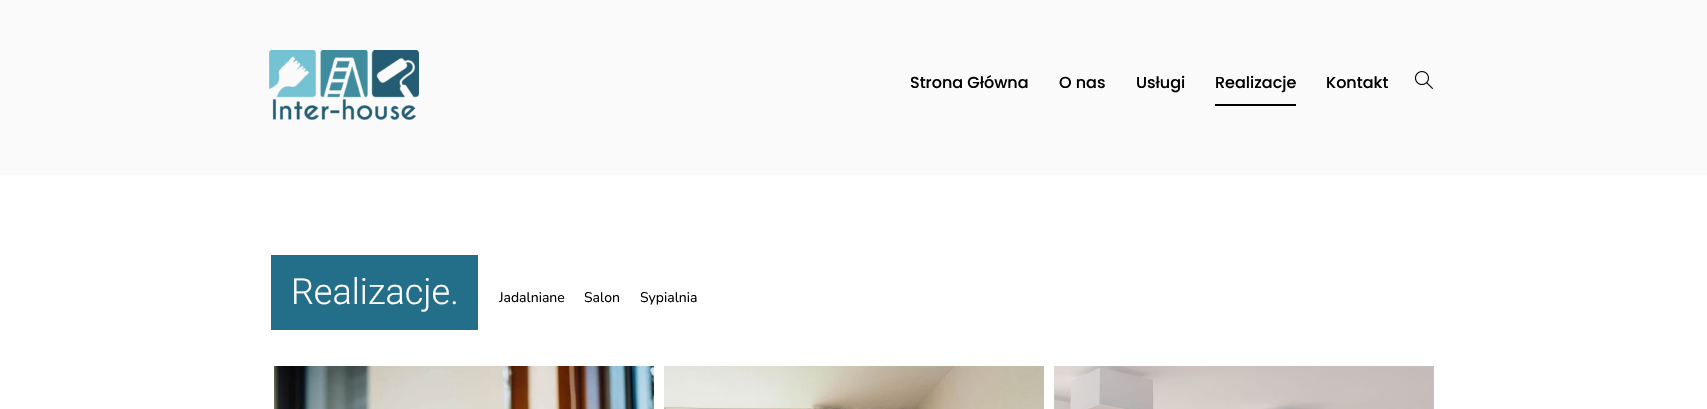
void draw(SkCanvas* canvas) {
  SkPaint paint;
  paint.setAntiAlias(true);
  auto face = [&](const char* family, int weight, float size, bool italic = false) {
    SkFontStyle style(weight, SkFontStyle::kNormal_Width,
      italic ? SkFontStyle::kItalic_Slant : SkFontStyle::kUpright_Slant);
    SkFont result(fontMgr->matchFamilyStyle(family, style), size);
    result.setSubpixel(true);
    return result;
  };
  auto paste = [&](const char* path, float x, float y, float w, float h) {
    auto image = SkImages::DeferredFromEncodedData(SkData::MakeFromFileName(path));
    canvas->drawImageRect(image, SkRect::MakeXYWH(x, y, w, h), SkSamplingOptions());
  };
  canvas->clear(0xfffafafa);
  paste("img/1.png", 269, 50, 150, 71);
  paint.setColor(0xff000000);
  canvas->drawRect(SkRect::MakeXYWH(1215, 104, 81, 2), paint);
  paste("img/2.png", 1414, 71, 19, 18);
  paint.setColor(0xffffffff);
  canvas->drawRect(SkRect::MakeXYWH(0, 175, 1707, 234), paint);
  paint.setColor(0xff236e89);
  canvas->drawRect(SkRect::MakeXYWH(271, 255, 207, 75), paint);
  paste("img/3.png", 274, 366, 380, 43);
  paste("img/4.png", 664, 366, 380, 43);
  paste("img/5.png", 1054, 366, 380, 43);
  auto f0 = face("Poppins", 500, 16);
  paint.setColor(0xff000000);
  {
    const struct { const char* s; float x, y; } items[] = {
      {"Strona Główna", 910, 88},
      {"O nas", 1059, 88},
      {"Usługi", 1136, 88},
      {"Realizacje", 1215, 88},
      {"Kontakt", 1326, 88},
    };
    for (auto [s, x, y] : items) {
      canvas->drawString(s, x, y, f0, paint);
    }
  }
  auto f1 = face("Roboto", 300, 36);
  paint.setColor(0xffffffff);
  canvas->drawString("Realizacje.", 291, 304, f1, paint);
  auto f2 = face("Nunito Sans", 200, 14);
  paint.setColor(0xff000000);
  {
    const struct { const char* s; float x, y; } items[] = {
      {"Jadalniane", 499, 302},
      {"Salon", 584, 302},
      {"Sypialnia", 640, 302},
    };
    for (auto [s, x, y] : items) {
      canvas->drawString(s, x, y, f2, paint);
    }
  }
}
